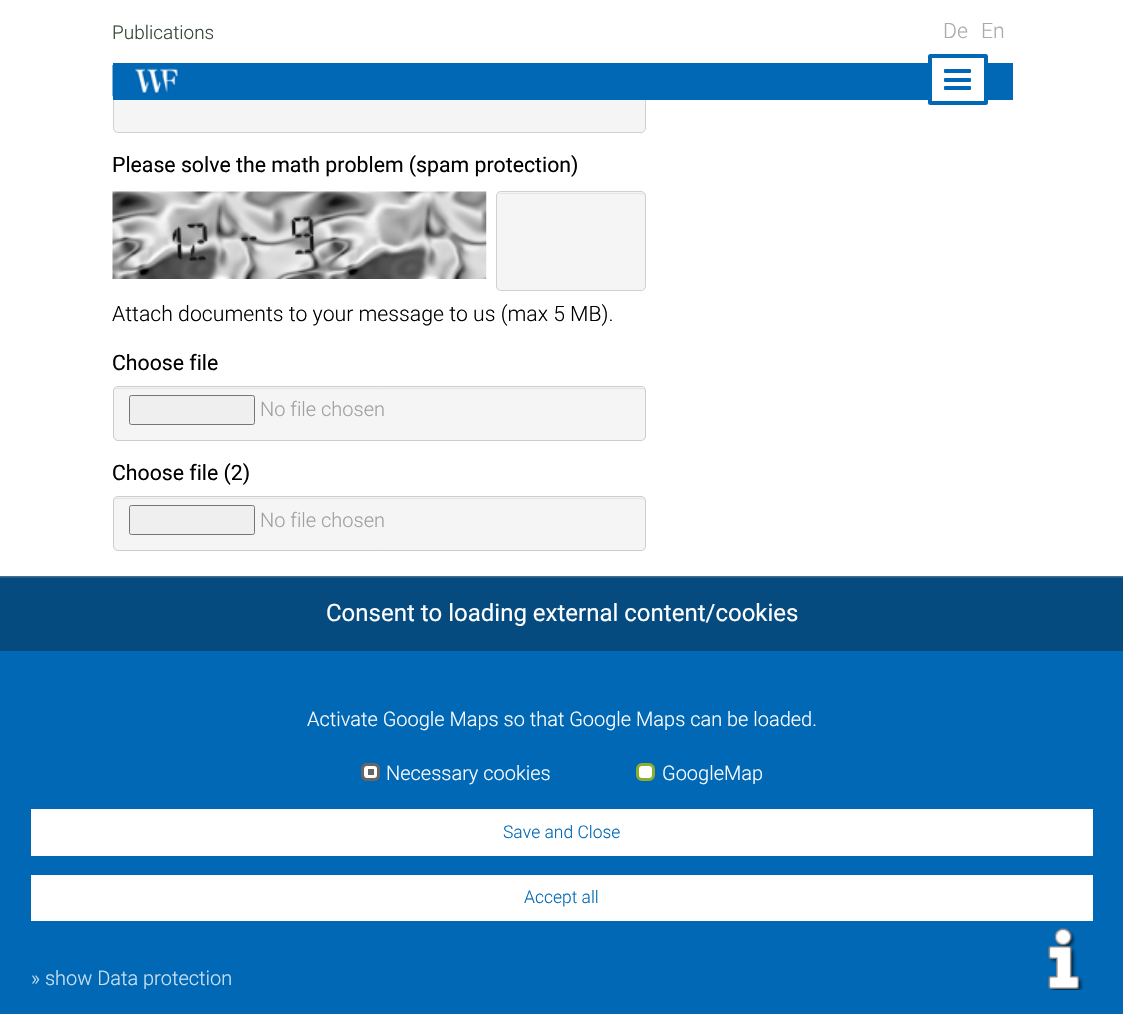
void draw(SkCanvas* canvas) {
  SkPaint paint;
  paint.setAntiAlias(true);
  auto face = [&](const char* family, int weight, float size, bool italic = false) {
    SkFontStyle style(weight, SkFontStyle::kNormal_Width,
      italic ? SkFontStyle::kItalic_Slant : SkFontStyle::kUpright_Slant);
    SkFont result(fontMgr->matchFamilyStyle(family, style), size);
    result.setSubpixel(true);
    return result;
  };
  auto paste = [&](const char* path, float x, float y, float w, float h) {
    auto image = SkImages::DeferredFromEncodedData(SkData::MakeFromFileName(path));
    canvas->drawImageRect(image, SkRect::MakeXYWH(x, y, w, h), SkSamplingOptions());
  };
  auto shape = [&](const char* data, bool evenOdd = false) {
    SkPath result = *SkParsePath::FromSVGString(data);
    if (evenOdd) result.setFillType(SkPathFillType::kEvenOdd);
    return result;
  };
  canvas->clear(0xffffffff);
  paint.setColor(0xfff5f5f5);
  canvas->drawRoundRect(SkRect::MakeXYWH(113.5f, -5.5f, 532, 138), 4.5f, 4.5f, paint);
  paint.setStroke(true);
  paint.setStrokeWidth(1);
  paint.setColor(0xffd0d0d0);
  canvas->drawRoundRect(SkRect::MakeXYWH(113.5f, -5.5f, 532, 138), 4.5f, 4.5f, paint);
  paint.setStroke(false);
  paint.setColor(0xffffffff);
  canvas->drawRect(SkRect::MakeXYWH(113, 0, 533, 63), paint);
  paint.setColor(0xff0168b5);
  canvas->drawRect(SkRect::MakeXYWH(113, 63, 900, 37), paint);
  paint.setColor(0xffffffff);
  canvas->drawRoundRect(SkRect::MakeXYWH(930, 56, 56, 47), 0.5f, 0.5f, paint);
  paint.setStroke(true);
  paint.setStrokeWidth(4);
  paint.setColor(0xff0168b5);
  canvas->drawRoundRect(SkRect::MakeXYWH(930, 56, 56, 47), 0.5f, 0.5f, paint);
  paint.setStroke(false);
  canvas->drawRoundRect(SkRect::MakeXYWH(944, 69, 27, 4), 1, 1, paint);
  canvas->drawRoundRect(SkRect::MakeXYWH(944, 78, 27, 4), 1, 1, paint);
  canvas->drawRoundRect(SkRect::MakeXYWH(944, 86, 27, 4), 1, 1, paint);
  paste("img/1.png", 112, 65, 67, 32);
  paste("img/2.png", 112, 191, 375, 88);
  paint.setColor(0xfff5f5f5);
  canvas->drawRoundRect(SkRect::MakeXYWH(496, 191, 150, 100), 5, 5, paint);
  paint.setColor(0xffe3e3e3);
  canvas->drawPath(shape("M501 194H641C643 194 645 195 645 198V197C645 195 643 193 641 193H502C500 193 498 195 498 197V198C498 195 499 194 501 194Z"), paint);
  paint.setStroke(true);
  paint.setStrokeWidth(1);
  paint.setColor(0xffd0d0d0);
  canvas->drawRoundRect(SkRect::MakeXYWH(496.5f, 191.5f, 149, 99), 4.5f, 4.5f, paint);
  paint.setStroke(false);
  paint.setColor(0xfff5f5f5);
  canvas->drawRoundRect(SkRect::MakeXYWH(113, 386, 533, 55), 5, 5, paint);
  paint.setColor(0xffe3e3e3);
  canvas->drawPath(shape("M118 389H641C643 389 645 390 645 392C645 390 643 388 641 388H118C116 388 115 389 114 390C115 389 116 389 118 389Z"), paint);
  paint.setStroke(true);
  paint.setColor(0xffcccccc);
  canvas->drawRoundRect(SkRect::MakeXYWH(113.5f, 386.5f, 532, 54), 4.5f, 4.5f, paint);
  paint.setStroke(false);
  paint.setColor(0xffefefef);
  canvas->drawRoundRect(SkRect::MakeXYWH(129.5f, 395.5f, 125, 29), 2, 2, paint);
  paint.setStroke(true);
  paint.setColor(0xff767676);
  canvas->drawRoundRect(SkRect::MakeXYWH(129.5f, 395.5f, 125, 29), 2, 2, paint);
  paint.setStroke(false);
  paint.setColor(0xfff5f5f5);
  canvas->drawRoundRect(SkRect::MakeXYWH(113, 496, 533, 55), 5, 5, paint);
  paint.setColor(0xffe3e3e3);
  canvas->drawPath(shape("M118 499H641C643 499 645 500 645 502C645 500 643 498 641 498H118C116 498 115 499 114 500C115 499 116 499 118 499Z"), paint);
  paint.setStroke(true);
  paint.setColor(0xffcccccc);
  canvas->drawRoundRect(SkRect::MakeXYWH(113.5f, 496.5f, 532, 54), 4.5f, 4.5f, paint);
  paint.setStroke(false);
  paint.setColor(0xffefefef);
  canvas->drawRoundRect(SkRect::MakeXYWH(129.5f, 505.5f, 125, 29), 2, 2, paint);
  paint.setStroke(true);
  paint.setColor(0xff767676);
  canvas->drawRoundRect(SkRect::MakeXYWH(129.5f, 505.5f, 125, 29), 2, 2, paint);
  paint.setStroke(false);
  paint.setColor(0xff0168b5);
  canvas->drawRect(SkRect::MakeXYWH(0, 577, 1123, 437), paint);
  paste("img/3.png", 1048, 928, 36, 62);
  paint.setColor(0xff666666);
  canvas->drawRect(SkRect::MakeXYWH(0, 576, 1123, 1), paint);
  paint.setColor(0xff054b7f);
  canvas->drawRect(SkRect::MakeXYWH(0, 578, 1123, 73), paint);
  paint.setColor(0xff666666);
  canvas->drawRoundRect(SkRect::MakeXYWH(361, 763, 19, 18), 6, 6, paint);
  paint.setStroke(true);
  paint.setStrokeWidth(4);
  paint.setColor(0xffffffff);
  canvas->drawRoundRect(SkRect::MakeXYWH(366, 767, 10, 10), 2, 2, paint);
  paint.setStrokeWidth(3);
  paint.setColor(0xff666666);
  canvas->drawRoundRect(SkRect::MakeXYWH(362.5f, 764.5f, 16, 15), 4.5f, 4.5f, paint);
  paint.setStroke(false);
  paint.setColor(0xffffffff);
  canvas->drawRoundRect(SkRect::MakeXYWH(637.5f, 764.5f, 16, 15), 4.5f, 4.5f, paint);
  paint.setStroke(true);
  paint.setColor(0xff8cad2d);
  canvas->drawRoundRect(SkRect::MakeXYWH(637.5f, 764.5f, 16, 15), 4.5f, 4.5f, paint);
  paint.setStroke(false);
  paint.setColor(0xffffffff);
  canvas->drawRect(SkRect::MakeXYWH(31, 809, 1062, 47), paint);
  canvas->drawRect(SkRect::MakeXYWH(31, 875, 1062, 46), paint);
  paste("img/4.png", 1048, 928, 36, 62);
  auto f0 = face("Roboto", 300, 19);
  paint.setColor(0xff334334);
  canvas->drawString("Publications", 112, 39, f0, paint);
  auto f1 = face("Roboto", 300, 21.25f);
  paint.setColor(0xffaaaaaa);
  canvas->drawString("De", 943, 38, f1, paint);
  canvas->drawString("En", 981, 38, f1, paint);
  auto f2 = face("Roboto", 400, 21.25f);
  paint.setColor(0xff000000);
  canvas->drawString("Please solve the math problem (spam protection)", 112, 172, f2, paint);
  canvas->drawString("Attach documents to your message to us (max 5 MB).", 112, 321, f1, paint);
  canvas->drawString("Choose file", 112, 370, f2, paint);
  auto f3 = face("Roboto", 300, 20);
  paint.setColor(0xffa0a0a0);
  canvas->drawString("No file chosen", 260, 416, f3, paint);
  paint.setColor(0xff000000);
  canvas->drawString("Choose file (2)", 112, 480, f2, paint);
  paint.setColor(0xffa0a0a0);
  canvas->drawString("No file chosen", 260, 527, f3, paint);
  auto f4 = face("Roboto", 400, 24);
  paint.setColor(0xffffffff);
  canvas->drawString("Consent to loading external content/cookies", 326, 621, f4, paint);
  {
    const struct { const char* s; float x, y; } items[] = {
      {"Activate Google Maps so that Google Maps can be loaded.", 307, 726},
      {"Necessary cookies", 386, 780},
      {"GoogleMap", 662, 780},
    };
    for (auto [s, x, y] : items) {
      canvas->drawString(s, x, y, f3, paint);
    }
  }
  auto f5 = face("Roboto", 300, 17.5f);
  paint.setColor(0xff0168b5);
  canvas->drawString("Save and Close", 503, 838, f5, paint);
  canvas->drawString("Accept all", 524, 903, f5, paint);
  paint.setColor(0xffcce1f0);
  canvas->drawString("» show Data protection", 31, 985, f3, paint);
}
